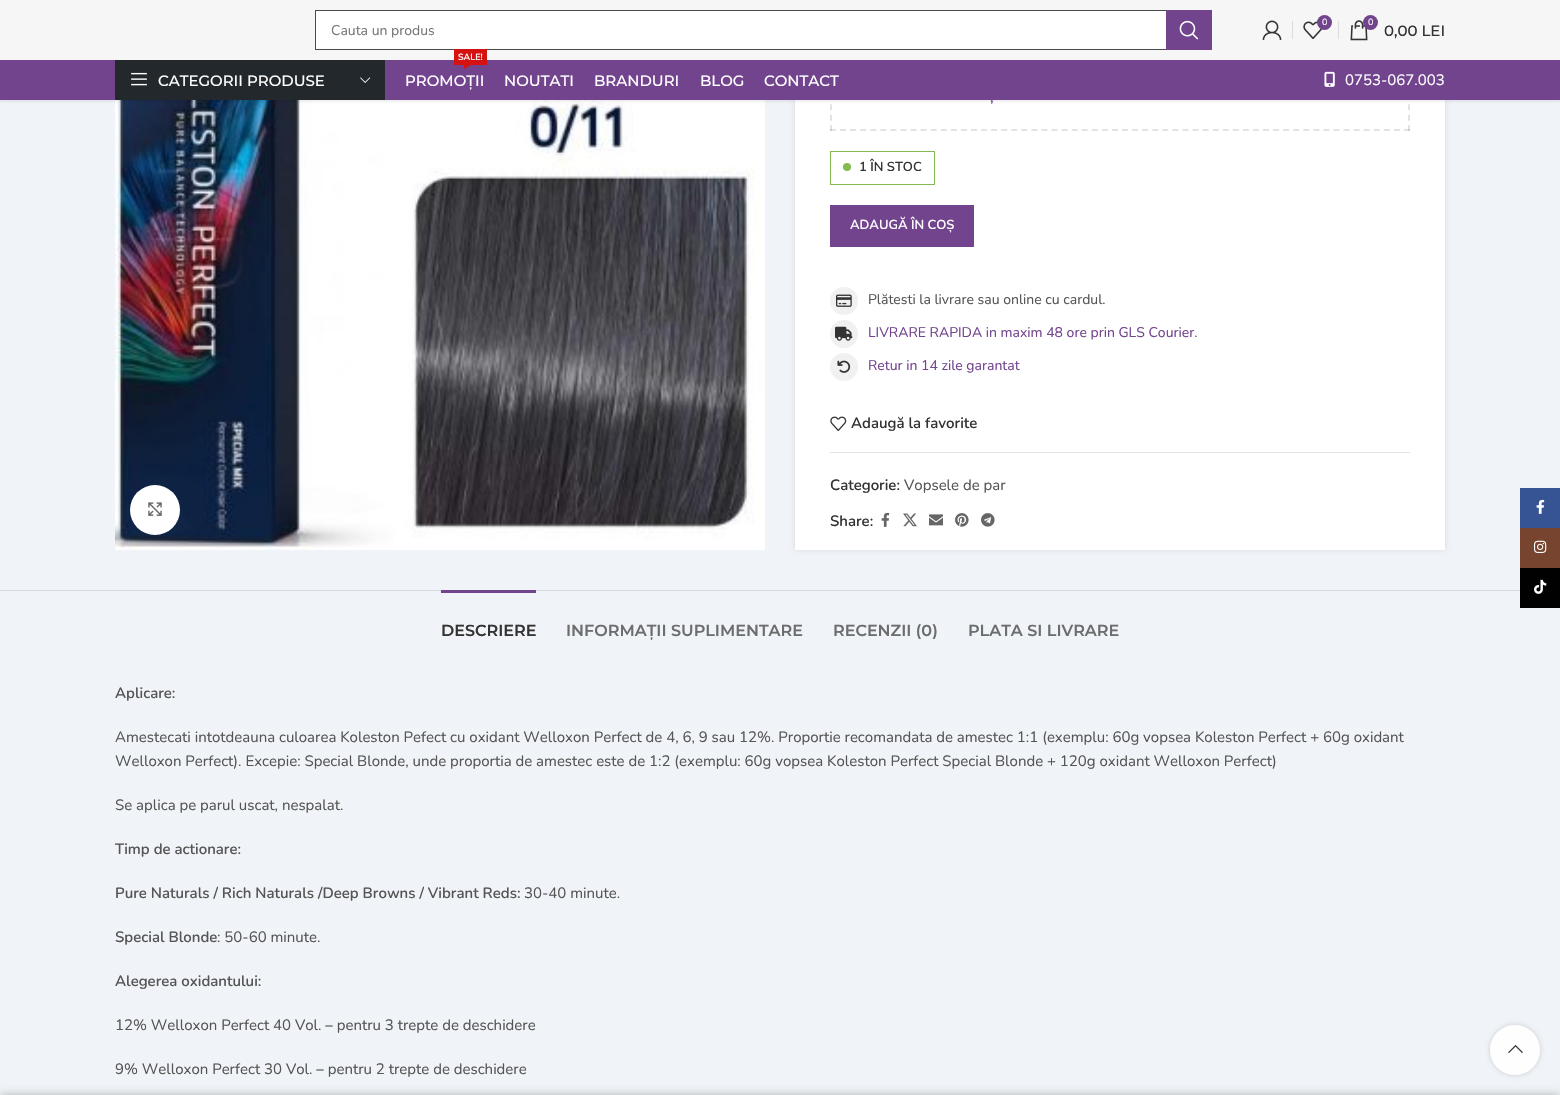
void draw(SkCanvas* canvas) {
  SkPaint paint;
  paint.setAntiAlias(true);
  auto face = [&](const char* family, int weight, float size, bool italic = false) {
    SkFontStyle style(weight, SkFontStyle::kNormal_Width,
      italic ? SkFontStyle::kItalic_Slant : SkFontStyle::kUpright_Slant);
    SkFont result(fontMgr->matchFamilyStyle(family, style), size);
    result.setSubpixel(true);
    return result;
  };
  auto paste = [&](const char* path, float x, float y, float w, float h) {
    auto image = SkImages::DeferredFromEncodedData(SkData::MakeFromFileName(path));
    canvas->drawImageRect(image, SkRect::MakeXYWH(x, y, w, h), SkSamplingOptions());
  };
  auto shape = [&](const char* data, bool evenOdd = false) {
    SkPath result = *SkParsePath::FromSVGString(data);
    if (evenOdd) result.setFillType(SkPathFillType::kEvenOdd);
    return result;
  };
  canvas->clear(0xfff0f3f7);
  paste("img/8.png", 115, 100, 650, 450);
  paint.setColor(0x1a000000);
  paint.setMaskFilter(SkMaskFilter::MakeBlur(kNormal_SkBlurStyle, 2.5f));
  canvas->drawRect(SkRect::MakeXYWH(795, -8, 650, 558), paint);
  paint.setMaskFilter(nullptr);
  paint.setColor(0xffffffff);
  canvas->drawRect(SkRect::MakeXYWH(795, 100, 650, 450), paint);
  paint.setStroke(true);
  paint.setStrokeWidth(2);
  paint.setColor(0x1c000000);
  paint.setPathEffect(SkDashPathEffect::Make({{6, 4.33f}}, 0));
  canvas->drawPath(shape("M1409 63V131"), paint);
  paint.setPathEffect(nullptr);
  paint.setPathEffect(SkDashPathEffect::Make({{6, 4.07f}}, 0));
  canvas->drawPath(shape("M830 130H1410"), paint);
  paint.setPathEffect(nullptr);
  paint.setPathEffect(SkDashPathEffect::Make({{6, 4.33f}}, 0));
  canvas->drawPath(shape("M831 63V131"), paint);
  paint.setPathEffect(nullptr);
  paint.setStroke(false);
  paint.setColor(0x1a000000);
  paint.setMaskFilter(SkMaskFilter::MakeBlur(kNormal_SkBlurStyle, 1.5f));
  canvas->drawRect(SkRect::MakeXYWH(0, 1, 1560, 100), paint);
  paint.setMaskFilter(nullptr);
  paint.setColor(0xfff6f6f6);
  canvas->drawRect(SkRect::MakeXYWH(0, 0, 1560, 60), paint);
  paint.setColor(0xffffffff);
  canvas->drawRect(SkRect::MakeXYWH(316, 11, 850, 38), paint);
  paint.setStroke(true);
  paint.setStrokeWidth(1);
  paint.setColor(0xff4a4a4a);
  canvas->drawRect(SkRect::MakeXYWH(315.5f, 10.5f, 896, 39), paint);
  paint.setStroke(false);
  paint.setColor(0xff72448d);
  canvas->drawRect(SkRect::MakeXYWH(1166, 10, 46, 40), paint);
  paste("img/1.png", 1179, 20, 20, 20);
  paste("img/2.png", 1262, 20, 20, 20);
  paint.setColor(0xffdcdcdc);
  canvas->drawRect(SkRect::MakeXYWH(1292, 21, 1, 18), paint);
  paste("img/3.png", 1303, 21, 20, 18);
  paint.setColor(0xff72448d);
  canvas->drawCircle(1324.5f, 22.5f, 7.5f, paint);
  paint.setColor(0xffdcdcdc);
  canvas->drawRect(SkRect::MakeXYWH(1338, 21, 1, 18), paint);
  paste("img/4.png", 1350, 20, 18, 21);
  paint.setColor(0xff72448d);
  canvas->drawCircle(1370.5f, 22.5f, 7.5f, paint);
  canvas->drawRect(SkRect::MakeXYWH(0, 60, 1560, 40), paint);
  paint.setColor(0xff23282d);
  canvas->drawRect(SkRect::MakeXYWH(115, 60, 270, 40), paint);
  paste("img/5.png", 131, 72, 16, 14);
  paste("img/6.png", 360, 77, 11, 6);
  paint.setColor(0xffd41212);
  canvas->drawRect(SkRect::MakeXYWH(454, 49, 33, 16), paint);
  canvas->drawPath(shape("M464 65H471L464 69Z"), paint);
  paste("img/7.png", 1324, 71, 11, 16);
  paint.setColor(0xffffffff);
  canvas->drawCircle(155, 510, 25, paint);
  paste("img/9.png", 148, 502, 14, 14);
  paint.setStroke(true);
  paint.setColor(0xff85b951);
  canvas->drawRect(SkRect::MakeXYWH(830.5f, 151.5f, 104, 33), paint);
  paint.setStroke(false);
  canvas->drawCircle(847, 167, 4, paint);
  paint.setColor(0xff72448d);
  canvas->drawRect(SkRect::MakeXYWH(830, 205, 144, 42), paint);
  paint.setColor(0xfff1f1f1);
  canvas->drawCircle(844, 301, 14, paint);
  paste("img/10.png", 836, 294, 16, 13);
  canvas->drawCircle(844, 334, 14, paint);
  paste("img/11.png", 835, 326, 18, 15);
  canvas->drawCircle(844, 367, 14, paint);
  paste("img/12.png", 837, 360, 14, 13);
  paste("img/13.png", 830, 416, 17, 15);
  paint.setColor(0xffe4e4e4);
  canvas->drawRect(SkRect::MakeXYWH(830, 452, 580, 1), paint);
  paste("img/14.png", 881, 512, 9, 15);
  paste("img/15.png", 903, 513, 14, 14);
  paste("img/16.png", 929, 514, 14, 12);
  paste("img/17.png", 955, 513, 14, 14);
  paste("img/18.png", 981, 513, 14, 14);
  {
    const struct { float x, y, w, h; SkColor color; } items[] = {
      {0, 590, 1520, 1, 0xffd7d9dd},
      {441, 590, 95, 3, 0xff72448d},
      {1520, 488, 40, 40, 0xff365493},
    };
    for (auto [x, y, w, h, color] : items) {
      paint.setColor(color);
      canvas->drawRect(SkRect::MakeXYWH(x, y, w, h), paint);
    }
  }
  paste("img/19.png", 1536, 499, 9, 15);
  paint.setColor(0xff774430);
  canvas->drawRect(SkRect::MakeXYWH(1520, 528, 40, 40), paint);
  paste("img/20.png", 1534, 540, 13, 13);
  paint.setColor(0xff010101);
  canvas->drawRect(SkRect::MakeXYWH(1520, 568, 40, 40), paint);
  paste("img/21.png", 1534, 579, 13, 15);
  canvas->save();
  canvas->clipPath(shape("M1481 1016H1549V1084H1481ZM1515 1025C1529 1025 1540 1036 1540 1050C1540 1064 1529 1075 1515 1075C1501 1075 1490 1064 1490 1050C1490 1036 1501 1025 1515 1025Z", true), true);
  paint.setColor(0x2b000000);
  paint.setMaskFilter(SkMaskFilter::MakeBlur(kNormal_SkBlurStyle, 2.5f));
  canvas->drawRoundRect(SkRect::MakeXYWH(1490, 1025, 50, 50), 25, 25, paint);
  paint.setMaskFilter(nullptr);
  canvas->restore();
  paint.setColor(0xe6ffffff);
  canvas->drawCircle(1515, 1050, 25, paint);
  paste("img/22.png", 1508, 1044, 15, 9);
  paint.setColor(0x1f000000);
  paint.setMaskFilter(SkMaskFilter::MakeBlur(kNormal_SkBlurStyle, 4.5f));
  canvas->drawRect(SkRect::MakeXYWH(0, 1095, 1560, 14), paint);
  paint.setMaskFilter(nullptr);
  paint.setColor(0x24000000);
  paint.setMaskFilter(SkMaskFilter::MakeBlur(kNormal_SkBlurStyle, 4.5f));
  canvas->drawRect(SkRect::MakeXYWH(0, 1095, 1560, 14), paint);
  paint.setMaskFilter(nullptr);
  auto f0 = face("Nunito", 400, 14);
  paint.setColor(0xff777777);
  canvas->drawString("Cauta un produs", 331, 35, f0, paint);
  auto f1 = face("Nunito", 400, 9);
  paint.setColor(0xffffffff);
  canvas->drawString("0", 1322, 25, f1, paint);
  canvas->drawString("0", 1368, 25, f1, paint);
  auto f2 = face("Montserrat", 500, 15);
  paint.setColor(0xff333333);
  canvas->drawString("0,00 LEI", 1384, 36, f2, paint);
  paint.setColor(0xffffffff);
  canvas->drawString("CATEGORII PRODUSE", 158, 86, f2, paint);
  auto f3 = face("Nunito", 600, 9);
  canvas->drawString("SALE!", 458, 60, f3, paint);
  {
    const struct { const char* s; float x, y; } items[] = {
      {"PROMOȚII", 405, 86},
      {"NOUTATI", 504, 86},
      {"BRANDURI", 594, 86},
      {"BLOG", 700, 86},
      {"CONTACT", 764, 86},
    };
    for (auto [s, x, y] : items) {
      canvas->drawString(s, x, y, f2, paint);
    }
  }
  auto f4 = face("Nunito", 400, 15);
  canvas->drawString("0753-067.003", 1345, 85, f4, paint);
  auto f5 = face("Nunito", 600, 15);
  paint.setColor(0xff72448d);
  canvas->drawString(",", 990, 102, f5, paint);
  auto f6 = face("Nunito", 600, 13);
  paint.setColor(0xff333333);
  canvas->drawString("1 ÎN STOC", 859, 171, f6, paint);
  paint.setColor(0xffffffff);
  canvas->drawString("ADAUGĂ ÎN COȘ", 850, 229, f6, paint);
  paint.setColor(0xff555555);
  canvas->drawString("Plătesti la livrare sau online cu cardul.", 868, 304, f0, paint);
  paint.setColor(0xff72448d);
  canvas->drawString("LIVRARE RAPIDA in maxim 48 ore prin GLS Courier.", 868, 337, f0, paint);
  canvas->drawString("Retur in 14 zile garantat", 868, 370, f0, paint);
  paint.setColor(0xff333333);
  canvas->drawString("Adaugă la favorite", 851, 428, f5, paint);
  canvas->drawString("Categorie:", 830, 490, f5, paint);
  paint.setColor(0xff555555);
  canvas->drawString("Vopsele de par", 904, 490, f4, paint);
  paint.setColor(0xff333333);
  canvas->drawString("Share:", 830, 526, f5, paint);
  auto f7 = face("Montserrat", 600, 16);
  canvas->drawString("DESCRIERE", 441, 636, f7, paint);
  paint.setColor(0xff6c6d6e);
  {
    const struct { const char* s; float x, y; } items[] = {
      {"INFORMAȚII SUPLIMENTARE", 566, 636},
      {"RECENZII (0)", 833, 636},
      {"PLATA SI LIVRARE", 968, 636},
    };
    for (auto [s, x, y] : items) {
      canvas->drawString(s, x, y, f7, paint);
    }
  }
  paint.setColor(0xff555555);
  canvas->drawString("Aplicare:", 115, 698, f5, paint);
  {
    const struct { const char* s; float x, y; } items[] = {
      {"Amestecati intotdeauna culoarea Koleston Pefect cu oxidant Welloxon Perfect de 4, 6, 9 sau 12%. Proportie recomandata de amestec 1:1 (exemplu: 60g vopsea Koleston Perfect + 60g oxidant", 115, 742},
      {"Welloxon Perfect). Excepie: Special Blonde, unde proportia de amestec este de 1:2 (exemplu: 60g vopsea Koleston Perfect Special Blonde + 120g oxidant Welloxon Perfect)", 115, 766},
      {"Se aplica pe parul uscat, nespalat.", 115, 810},
    };
    for (auto [s, x, y] : items) {
      canvas->drawString(s, x, y, f4, paint);
    }
  }
  canvas->drawString("Timp de actionare:", 115, 854, f5, paint);
  canvas->drawString("Pure Naturals / Rich Naturals /Deep Browns / Vibrant Reds:", 115, 898, f5, paint);
  canvas->drawString("30-40 minute.", 524, 898, f4, paint);
  canvas->drawString("Special Blonde", 115, 942, f5, paint);
  canvas->drawString(": 50-60 minute.", 217, 942, f4, paint);
  canvas->drawString("Alegerea oxidantului:", 115, 986, f5, paint);
  canvas->drawString("12% Welloxon Perfect 40 Vol. – pentru 3 trepte de deschidere", 115, 1030, f4, paint);
  canvas->drawString("9% Welloxon Perfect 30 Vol. – pentru 2 trepte de deschidere", 115, 1074, f4, paint);
}
